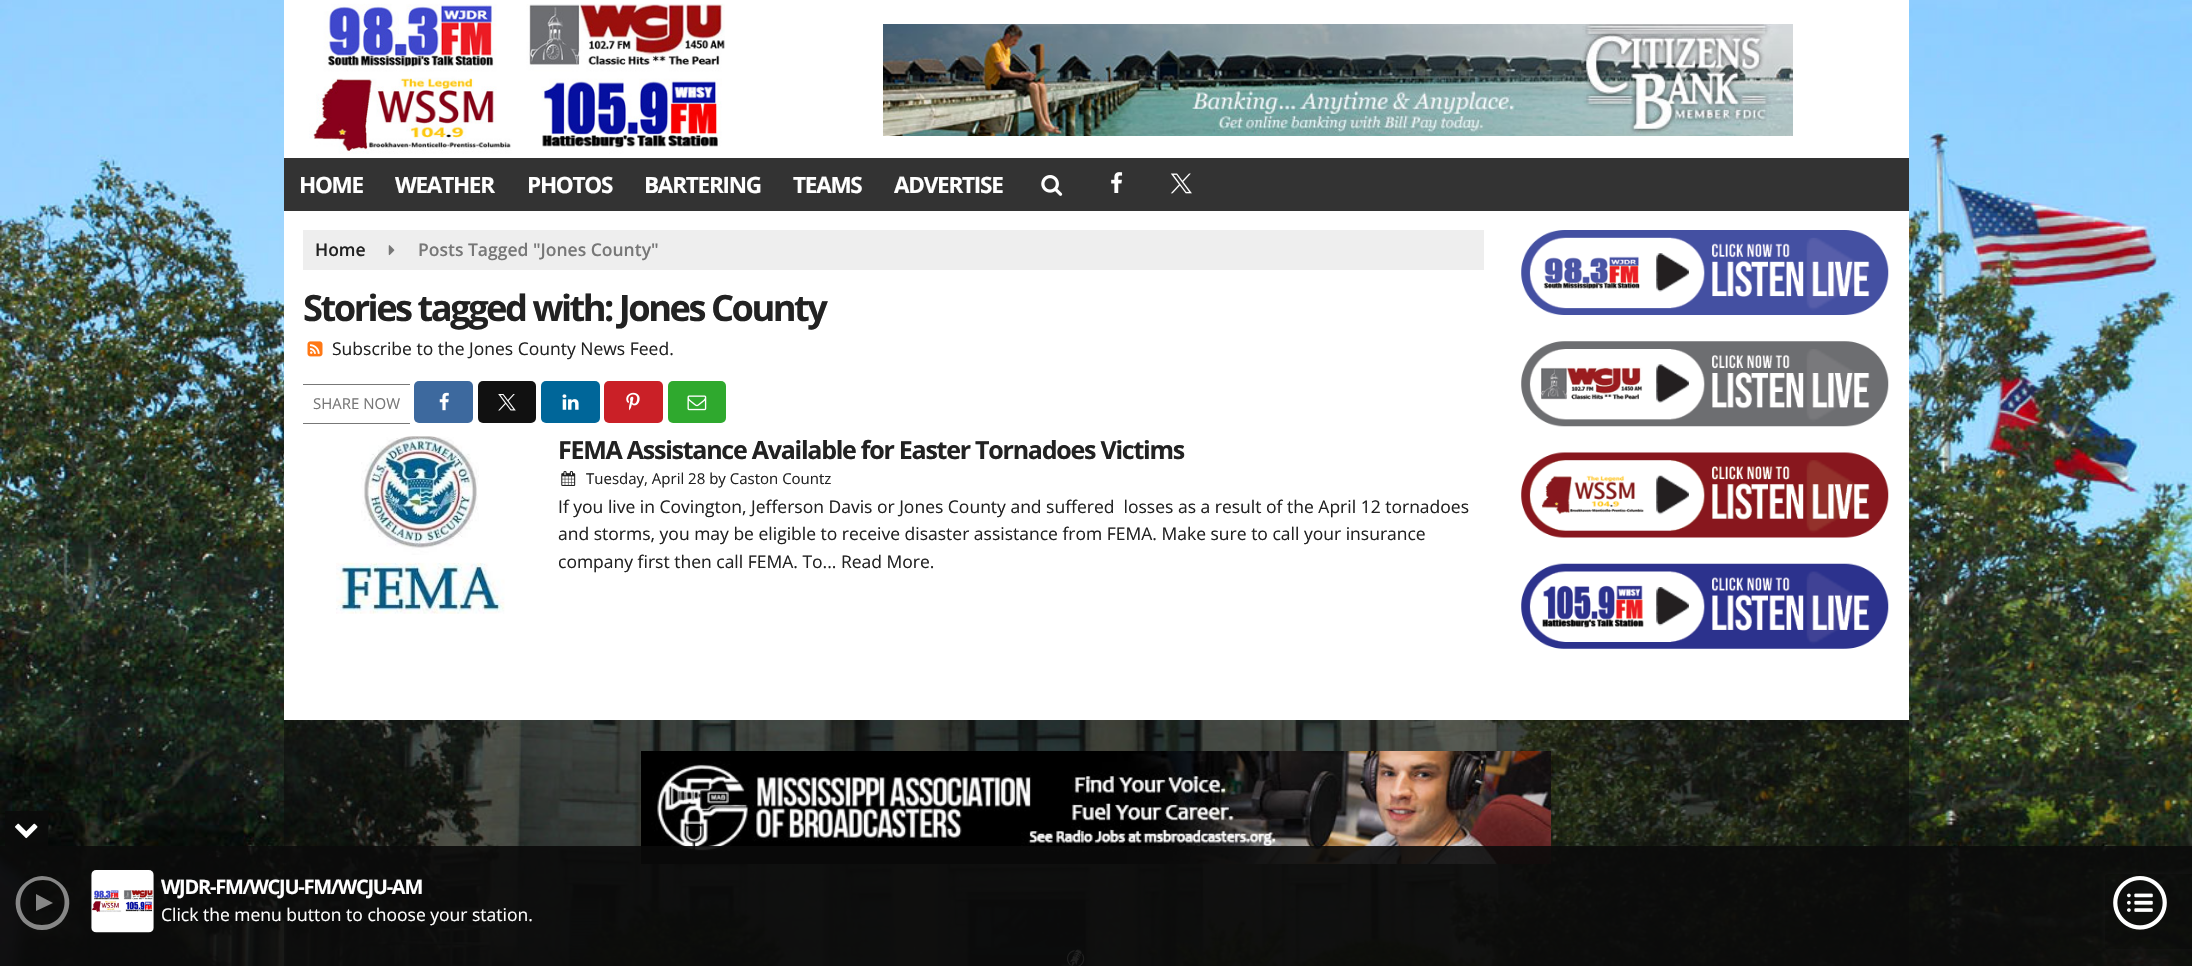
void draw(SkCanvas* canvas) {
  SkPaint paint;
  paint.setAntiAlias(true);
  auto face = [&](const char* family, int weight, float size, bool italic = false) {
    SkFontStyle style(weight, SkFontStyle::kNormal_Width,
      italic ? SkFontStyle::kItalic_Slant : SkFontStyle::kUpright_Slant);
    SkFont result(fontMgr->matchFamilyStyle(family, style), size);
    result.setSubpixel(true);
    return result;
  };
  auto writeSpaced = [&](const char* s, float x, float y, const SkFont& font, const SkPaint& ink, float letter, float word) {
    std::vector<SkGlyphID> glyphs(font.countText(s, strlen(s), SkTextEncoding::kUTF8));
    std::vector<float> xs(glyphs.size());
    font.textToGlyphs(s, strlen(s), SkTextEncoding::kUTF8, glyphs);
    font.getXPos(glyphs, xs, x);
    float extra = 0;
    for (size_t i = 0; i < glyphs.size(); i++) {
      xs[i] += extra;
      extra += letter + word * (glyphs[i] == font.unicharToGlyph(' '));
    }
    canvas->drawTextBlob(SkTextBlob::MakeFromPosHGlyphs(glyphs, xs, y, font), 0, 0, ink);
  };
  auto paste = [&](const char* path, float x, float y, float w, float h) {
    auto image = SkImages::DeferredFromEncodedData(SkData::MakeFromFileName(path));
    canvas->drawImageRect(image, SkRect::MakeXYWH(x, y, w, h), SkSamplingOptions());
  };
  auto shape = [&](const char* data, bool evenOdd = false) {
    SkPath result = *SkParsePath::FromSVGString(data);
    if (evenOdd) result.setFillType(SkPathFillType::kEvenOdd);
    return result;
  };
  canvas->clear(0xffffffff);
  paste("img/1.png", 0, 0, 2192, 966);
  paint.setColor(0xffffffff);
  canvas->drawRect(SkRect::MakeXYWH(284, 0, 1625, 158), paint);
  paste("img/2.png", 309, 3, 416, 151);
  paste("img/3.png", 883, 24, 910, 112);
  paint.setColor(0xff333333);
  canvas->drawRect(SkRect::MakeXYWH(284, 158, 1625, 53), paint);
  paste("img/4.png", 1041, 175, 22, 21);
  paste("img/5.png", 1111, 172, 12, 21);
  paste("img/6.png", 1170, 173, 22, 21);
  paint.setColor(0xffffffff);
  canvas->drawRect(SkRect::MakeXYWH(284, 211, 1625, 509), paint);
  paint.setColor(0xffeeeeee);
  canvas->drawRect(SkRect::MakeXYWH(303, 230, 1181, 40), paint);
  paste("img/7.png", 388, 245, 7, 11);
  paste("img/8.png", 307, 341, 16, 16);
  paint.setColor(0xff777777);
  canvas->drawRect(SkRect::MakeXYWH(303, 384, 107, 1), paint);
  canvas->drawRect(SkRect::MakeXYWH(303, 423, 107, 1), paint);
  paint.setColor(0xff3d699e);
  canvas->drawRoundRect(SkRect::MakeXYWH(414, 381, 59, 42), 5, 5, paint);
  paste("img/9.png", 439, 392, 10, 19);
  paint.setColor(0xff111111);
  canvas->drawRoundRect(SkRect::MakeXYWH(478, 381, 58, 42), 5, 5, paint);
  paste("img/10.png", 498, 394, 18, 17);
  paint.setColor(0xff006699);
  canvas->drawRoundRect(SkRect::MakeXYWH(541, 381, 59, 42), 5, 5, paint);
  paste("img/11.png", 562, 394, 17, 16);
  paint.setColor(0xffca2027);
  canvas->drawRoundRect(SkRect::MakeXYWH(604, 381, 59, 42), 5, 5, paint);
  paste("img/12.png", 626, 392, 14, 19);
  paint.setColor(0xff2fa92e);
  canvas->drawRoundRect(SkRect::MakeXYWH(668, 381, 58, 42), 5, 5, paint);
  paste("img/13.png", 687, 395, 20, 16);
  paste("img/14.png", 336, 436, 169, 178);
  paste("img/15.png", 561, 471, 15, 15);
  paste("img/16.png", 1521, 230, 368, 85);
  paste("img/17.png", 1521, 341, 368, 86);
  paste("img/18.png", 1521, 452, 368, 86);
  paste("img/19.png", 1521, 563, 368, 86);
  paint.setColor(0x960a0a0a);
  canvas->drawRect(SkRect::MakeXYWH(284, 720, 1625, 246), paint);
  paste("img/20.png", 641, 751, 910, 113);
  paste("img/21.png", 1067, 949, 18, 17);
  canvas->save();
  canvas->clipPath(shape("M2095 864H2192V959H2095ZM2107.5 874H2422.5C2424 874 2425 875 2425 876.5V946.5C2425 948 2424 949 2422.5 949H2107.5C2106 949 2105 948 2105 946.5V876.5C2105 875 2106 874 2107.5 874Z", true), true);
  paint.setColor(0xff808080);
  paint.setMaskFilter(SkMaskFilter::MakeBlur(kNormal_SkBlurStyle, 3));
  canvas->drawRoundRect(SkRect::MakeXYWH(2105, 874, 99, 75), 2.5f, 2.5f, paint);
  paint.setMaskFilter(nullptr);
  canvas->restore();
  paint.setColor(0xe60a0a0a);
  canvas->drawRect(SkRect::MakeXYWH(0, 846, 2192, 120), paint);
  canvas->drawRect(SkRect::MakeXYWH(5, 811, 43, 35), paint);
  paste("img/22.png", 15, 823, 23, 16);
  paint.setColor(0x80ffffff);
  canvas->drawPath(shape("M42 876C37 876 31 878 26 882C6 897 17 930 42 930C68 930 79 897 59 882C54 878 48 876 42 876ZM42 925C13 925 13 880 43 880C72 880 72 925 42 925ZM36 911L53 903L36 894Z"), paint);
  paste("img/23.png", 91, 870, 63, 63);
  paste("img/24.png", 2113, 876, 54, 54);
  auto f0 = face("Open Sans", 700, 22.5f);
  paint.setColor(0xffffffff);
  {
    const struct { const char* s; float x, y; } items[] = {
      {"HOME", 299, 193},
      {"WEATHER", 395, 193},
      {"PHOTOS", 527, 193},
      {"BARTERING", 644, 193},
      {"TEAMS", 793, 193},
      {"ADVERTISE", 894, 193},
    };
    for (auto [s, x, y] : items) {
      writeSpaced(s, x, y, f0, paint, -1.25f, 0);
    }
  }
  auto f1 = face("Open Sans", 600, 17.5f);
  paint.setColor(0xff222222);
  canvas->drawString("Home", 315, 256, f1, paint);
  paint.setColor(0xff777777);
  canvas->drawString("Posts Tagged \"Jones County\"", 418, 256, f1, paint);
  auto f2 = face("Open Sans", 700, 36.25f);
  paint.setColor(0xff222222);
  writeSpaced("Stories tagged with: Jones County", 303, 321, f2, paint, -2.5f, 0);
  auto f3 = face("Open Sans", 400, 17.5f);
  canvas->drawString("Subscribe to the Jones County News Feed.", 332, 355, f3, paint);
  auto f4 = face("Open Sans", 400, 15);
  paint.setColor(0xff777777);
  canvas->drawString("SHARE NOW", 313, 409, f4, paint);
  auto f5 = face("Open Sans", 700, 25);
  paint.setColor(0xff222222);
  writeSpaced("FEMA Assistance Available for Easter Tornadoes Victims", 558, 459, f5, paint, -1.25f, 0);
  canvas->drawString("Tuesday, April 28 by Caston Countz", 586, 484, f4, paint);
  {
    const struct { const char* s; float x, y; } items[] = {
      {"If you live in Covington, Jefferson Davis or Jones County and suffered  losses as a result of the April 12 tornadoes", 558, 513},
      {"and storms, you may be eligible to receive disaster assistance from FEMA. Make sure to call your insurance", 558, 540},
      {"company first then call FEMA. To... Read More.", 558, 568},
    };
    for (auto [s, x, y] : items) {
      canvas->drawString(s, x, y, f3, paint);
    }
  }
  auto f6 = face("Open Sans", 700, 20);
  paint.setColor(0xffffffff);
  writeSpaced("WJDR-FM/WCJU-FM/WCJU-AM", 161, 894, f6, paint, -1.25f, 0);
  canvas->drawString("Click the menu button to choose your station.", 161, 921, f3, paint);
}
